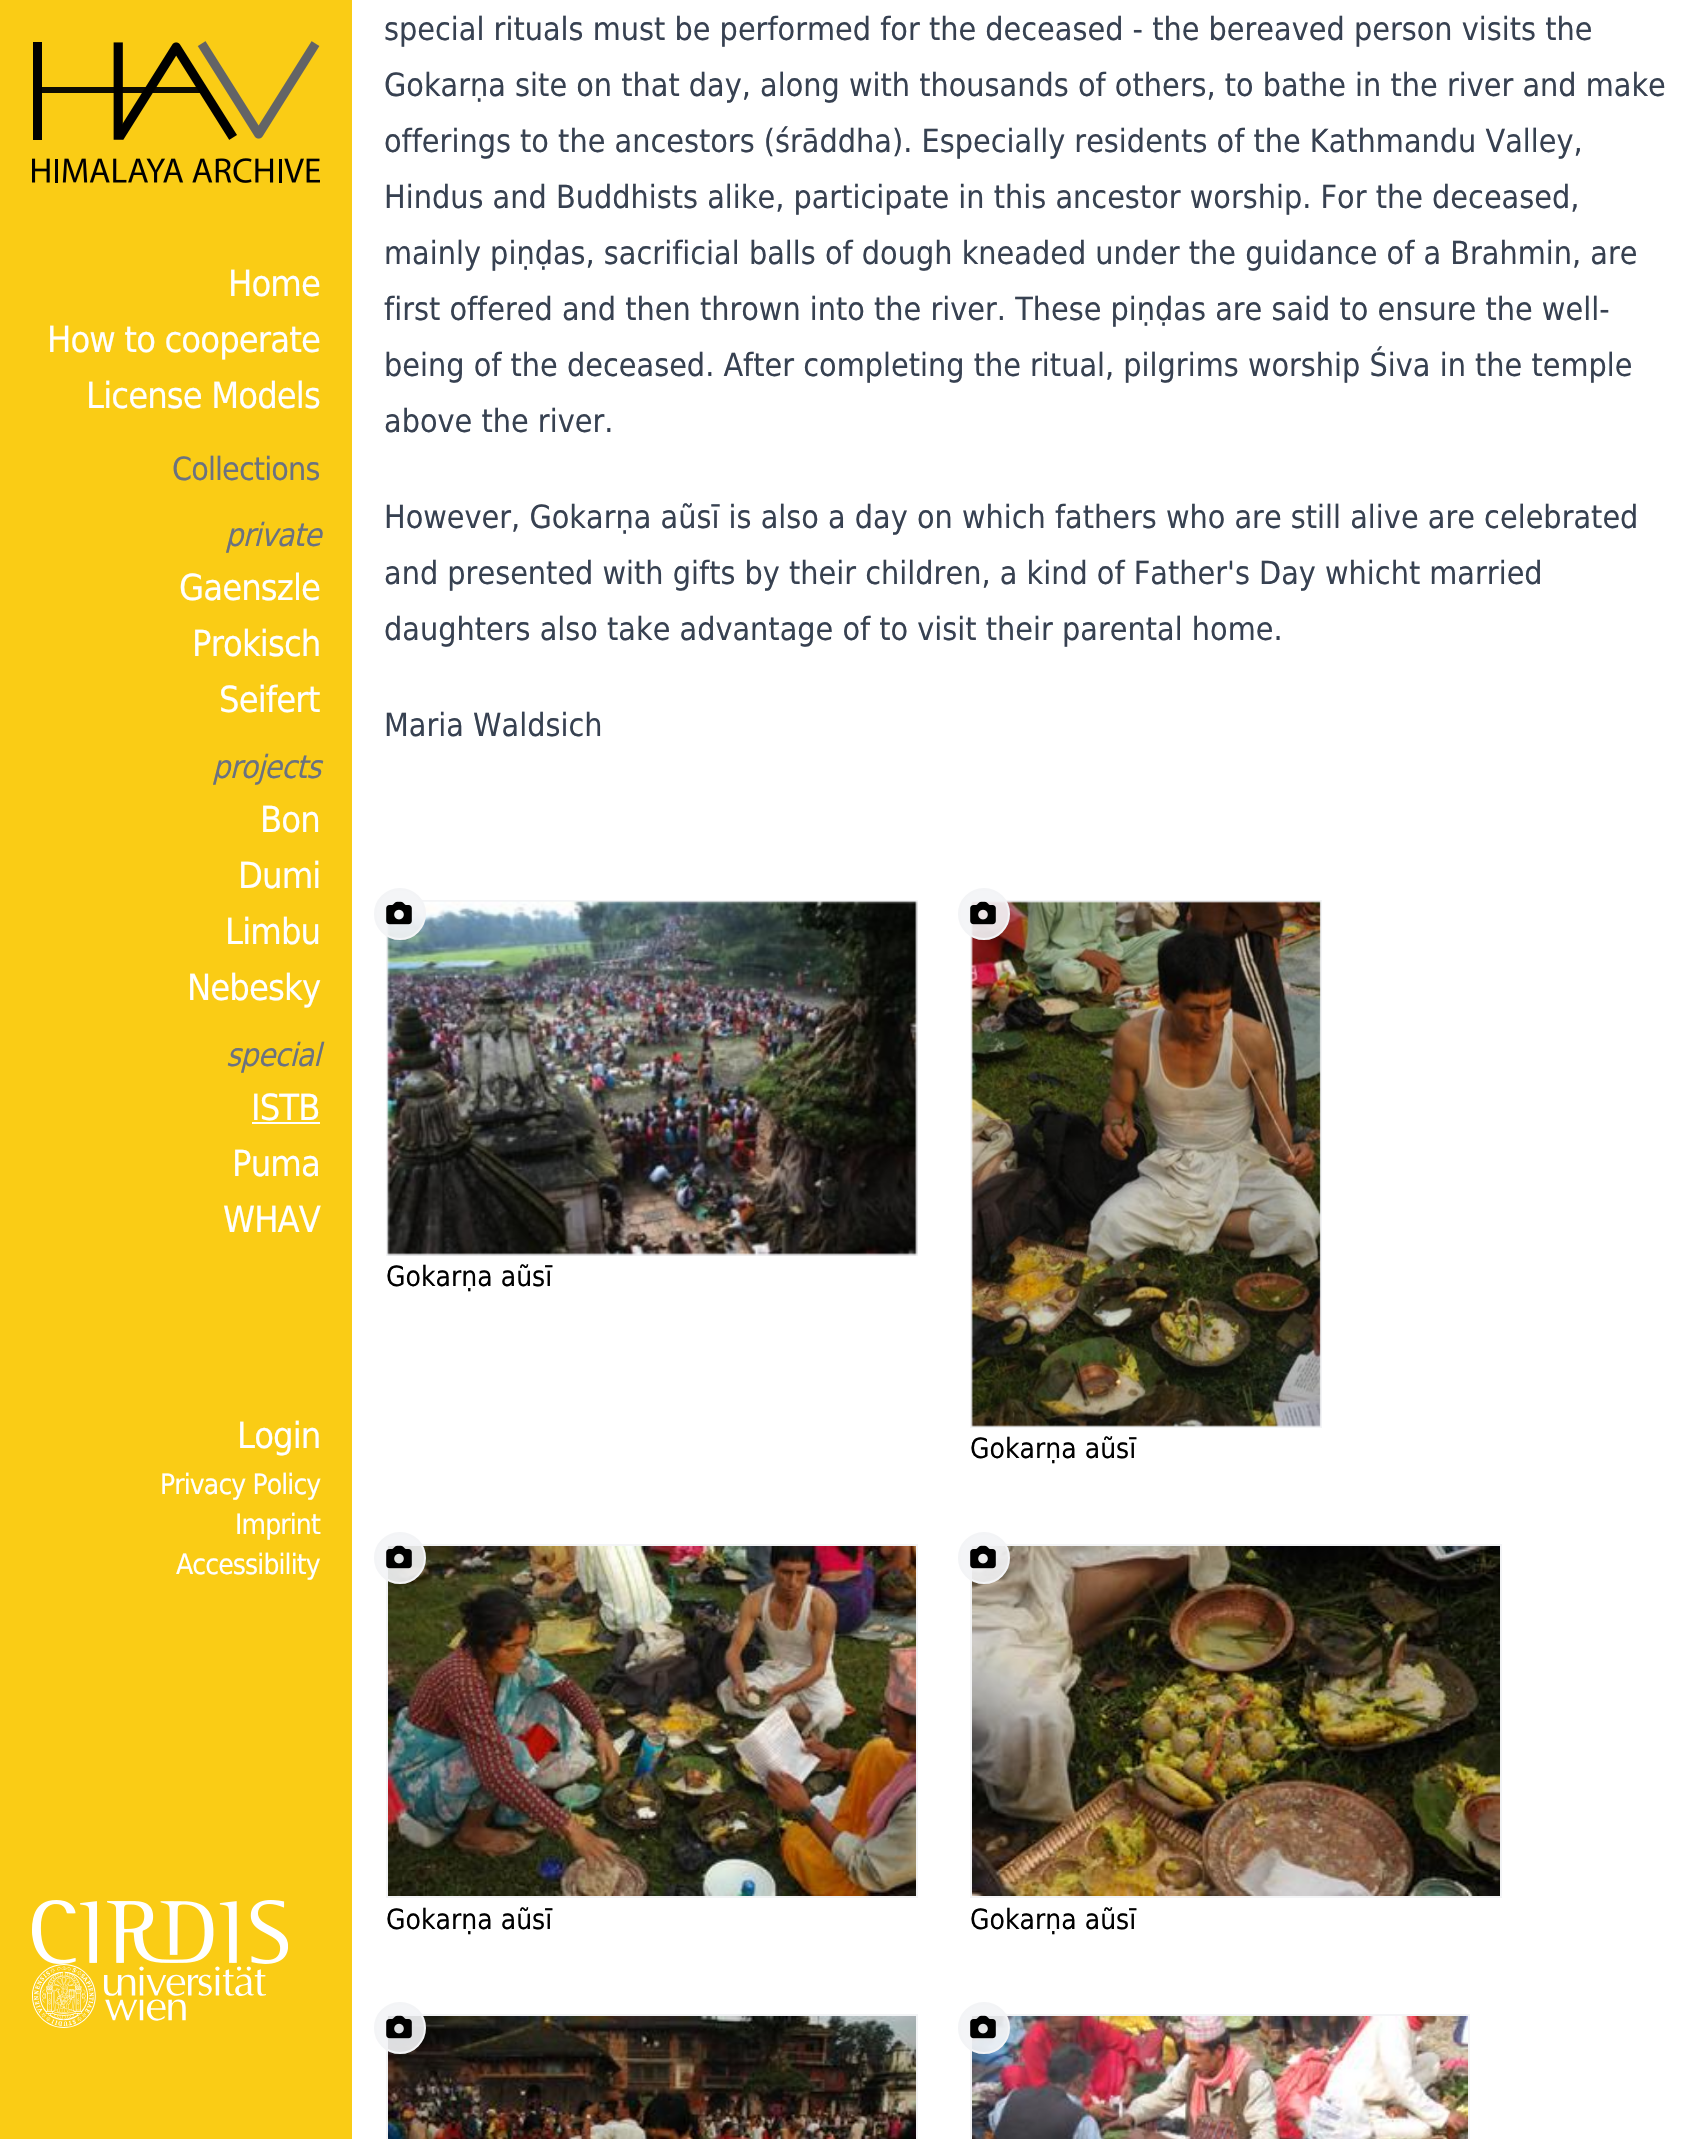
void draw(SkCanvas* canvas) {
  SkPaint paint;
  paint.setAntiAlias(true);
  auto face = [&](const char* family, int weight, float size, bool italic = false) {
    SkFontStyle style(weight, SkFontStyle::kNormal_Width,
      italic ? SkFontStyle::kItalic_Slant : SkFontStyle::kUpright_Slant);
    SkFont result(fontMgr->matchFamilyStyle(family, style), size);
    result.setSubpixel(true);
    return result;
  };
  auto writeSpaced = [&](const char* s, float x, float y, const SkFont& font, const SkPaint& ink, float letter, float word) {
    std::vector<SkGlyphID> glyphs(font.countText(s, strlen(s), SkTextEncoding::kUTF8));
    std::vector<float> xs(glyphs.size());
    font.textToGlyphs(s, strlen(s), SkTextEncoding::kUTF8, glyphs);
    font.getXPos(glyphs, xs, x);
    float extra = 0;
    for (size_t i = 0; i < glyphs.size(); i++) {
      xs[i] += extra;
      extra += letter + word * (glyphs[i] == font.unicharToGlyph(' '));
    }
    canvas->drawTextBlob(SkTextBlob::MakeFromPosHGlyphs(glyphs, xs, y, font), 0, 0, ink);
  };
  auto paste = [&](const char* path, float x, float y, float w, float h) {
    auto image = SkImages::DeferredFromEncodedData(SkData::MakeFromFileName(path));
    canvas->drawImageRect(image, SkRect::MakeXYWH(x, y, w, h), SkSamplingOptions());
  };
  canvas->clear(0xffffffff);
  paint.setColor(0xfffacc15);
  canvas->drawRect(SkRect::MakeXYWH(0, 0, 352, 2139), paint);
  paste("img/1.png", 32, 41, 288, 142);
  paint.setColor(0xffffffff);
  canvas->drawRect(SkRect::MakeXYWH(252, 1122, 68, 2), paint);
  paste("img/2.png", 32, 1900, 256, 64);
  paste("img/3.png", 32, 1964, 234, 64);
  paint.setStroke(true);
  paint.setStrokeWidth(2);
  paint.setColor(0xfff3f4f6);
  canvas->drawRect(SkRect::MakeXYWH(387, 901, 530, 354), paint);
  paste("img/5.png", 387, 901, 531, 355);
  paint.setStroke(false);
  paint.setColor(0xe6f3f4f6);
  canvas->drawCircle(400, 914, 25, paint);
  paint.setStroke(true);
  paint.setColor(0xfff3f4f6);
  canvas->drawCircle(400, 914, 25, paint);
  paste("img/4.png", 386, 901, 26, 24);
  canvas->drawRect(SkRect::MakeXYWH(971, 901, 350, 526), paint);
  paste("img/7.png", 971, 901, 350, 526);
  paint.setStroke(false);
  paint.setColor(0xe6f3f4f6);
  canvas->drawCircle(984, 914, 25, paint);
  paint.setStroke(true);
  paint.setColor(0xfff3f4f6);
  canvas->drawCircle(984, 914, 25, paint);
  paste("img/6.png", 970, 901, 26, 24);
  canvas->drawRect(SkRect::MakeXYWH(387, 1545, 530, 352), paint);
  paste("img/9.png", 388, 1546, 528, 350);
  paint.setStroke(false);
  paint.setColor(0xe6f3f4f6);
  canvas->drawCircle(400, 1558, 25, paint);
  paint.setStroke(true);
  paint.setColor(0xfff3f4f6);
  canvas->drawCircle(400, 1558, 25, paint);
  paste("img/8.png", 386, 1545, 26, 24);
  canvas->drawRect(SkRect::MakeXYWH(971, 1545, 530, 352), paint);
  paste("img/11.png", 972, 1546, 528, 350);
  paint.setStroke(false);
  paint.setColor(0xe6f3f4f6);
  canvas->drawCircle(984, 1558, 25, paint);
  paint.setStroke(true);
  paint.setColor(0xfff3f4f6);
  canvas->drawCircle(984, 1558, 25, paint);
  paste("img/10.png", 970, 1545, 26, 24);
  canvas->drawRect(SkRect::MakeXYWH(387, 2015, 530, 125), paint);
  paste("img/13.png", 388, 2016, 528, 123);
  paint.setStroke(false);
  paint.setColor(0xe6f3f4f6);
  canvas->drawCircle(400, 2028, 25, paint);
  paint.setStroke(true);
  paint.setColor(0xfff3f4f6);
  canvas->drawCircle(400, 2028, 25, paint);
  paste("img/12.png", 386, 2015, 26, 24);
  canvas->drawRect(SkRect::MakeXYWH(971, 2015, 498, 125), paint);
  paste("img/15.png", 972, 2016, 496, 123);
  paint.setStroke(false);
  paint.setColor(0xe6f3f4f6);
  canvas->drawCircle(984, 2028, 25, paint);
  paint.setStroke(true);
  paint.setColor(0xfff3f4f6);
  canvas->drawCircle(984, 2028, 25, paint);
  paste("img/14.png", 970, 2015, 26, 24);
  auto f0 = face("DejaVu Sans", 400, 36);
  paint.setStroke(false);
  paint.setColor(0xffffffff);
  {
    const struct { const char* s; float x, y; } items[] = {
      {"Home", 228, 296},
      {"How to cooperate", 47, 352},
      {"License Models", 86, 408},
    };
    for (auto [s, x, y] : items) {
      writeSpaced(s, x, y, f0, paint, -0.9f, 0);
    }
  }
  auto f1 = face("DejaVu Sans", 400, 32);
  paint.setColor(0xff6b7280);
  writeSpaced("Collections", 172, 480, f1, paint, -0.9f, 0);
  auto f2 = face("DejaVu Sans", 400, 32, true);
  writeSpaced("private", 225, 546, f2, paint, -0.9f, 0);
  paint.setColor(0xffffffff);
  {
    const struct { const char* s; float x, y; } items[] = {
      {"Gaenszle", 179, 600},
      {"Prokisch", 192, 656},
      {"Seifert", 219, 712},
    };
    for (auto [s, x, y] : items) {
      writeSpaced(s, x, y, f0, paint, -0.9f, 0);
    }
  }
  paint.setColor(0xff6b7280);
  writeSpaced("projects", 212, 778, f2, paint, -0.9f, 0);
  paint.setColor(0xffffffff);
  {
    const struct { const char* s; float x, y; } items[] = {
      {"Bon", 260, 832},
      {"Dumi", 238, 888},
      {"Limbu", 225, 944},
      {"Nebesky", 187, 1000},
    };
    for (auto [s, x, y] : items) {
      writeSpaced(s, x, y, f0, paint, -0.9f, 0);
    }
  }
  paint.setColor(0xff6b7280);
  writeSpaced("special", 226, 1066, f2, paint, -0.9f, 0);
  paint.setColor(0xffffffff);
  {
    const struct { const char* s; float x, y; } items[] = {
      {"ISTB", 251, 1120},
      {"Puma", 232, 1176},
      {"WHAV", 223, 1232},
      {"Login", 237, 1448},
    };
    for (auto [s, x, y] : items) {
      writeSpaced(s, x, y, f0, paint, -0.9f, 0);
    }
  }
  auto f3 = face("DejaVu Sans", 400, 28);
  {
    const struct { const char* s; float x, y; } items[] = {
      {"Privacy Policy", 160, 1494},
      {"Imprint", 235, 1534},
      {"Accessibility", 176, 1574},
    };
    for (auto [s, x, y] : items) {
      writeSpaced(s, x, y, f3, paint, -0.9f, 0);
    }
  }
  paint.setColor(0xff374151);
  {
    const struct { const char* s; float x, y; } items[] = {
      {"special rituals must be performed for the deceased - the bereaved person visits the", 384, 40},
      {"Gokarṇa site on that day, along with thousands of others, to bathe in the river and make", 384, 96},
      {"offerings to the ancestors (śrāddha). Especially residents of the Kathmandu Valley,", 384, 152},
      {"Hindus and Buddhists alike, participate in this ancestor worship. For the deceased,", 384, 208},
      {"mainly piṇḍas, sacrificial balls of dough kneaded under the guidance of a Brahmin, are", 384, 264},
      {"first offered and then thrown into the river. These piṇḍas are said to ensure the well-", 384, 320},
      {"being of the deceased. After completing the ritual, pilgrims worship Śiva in the temple", 384, 376},
      {"above the river.", 384, 432},
      {"However, Gokarṇa aũsī is also a day on which fathers who are still alive are celebrated", 384, 528},
      {"and presented with gifts by their children, a kind of Father's Day whicht married", 384, 584},
      {"daughters also take advantage of to visit their parental home.", 384, 640},
      {"Maria Waldsich", 384, 736},
    };
    for (auto [s, x, y] : items) {
      canvas->drawString(s, x, y, f1, paint);
    }
  }
  paint.setColor(0xff000000);
  {
    const struct { const char* s; float x, y; } items[] = {
      {"Gokarṇa aũsī", 386, 1286},
      {"Gokarṇa aũsī", 970, 1458},
      {"Gokarṇa aũsī", 386, 1929},
      {"Gokarṇa aũsī", 970, 1929},
    };
    for (auto [s, x, y] : items) {
      canvas->drawString(s, x, y, f3, paint);
    }
  }
}
